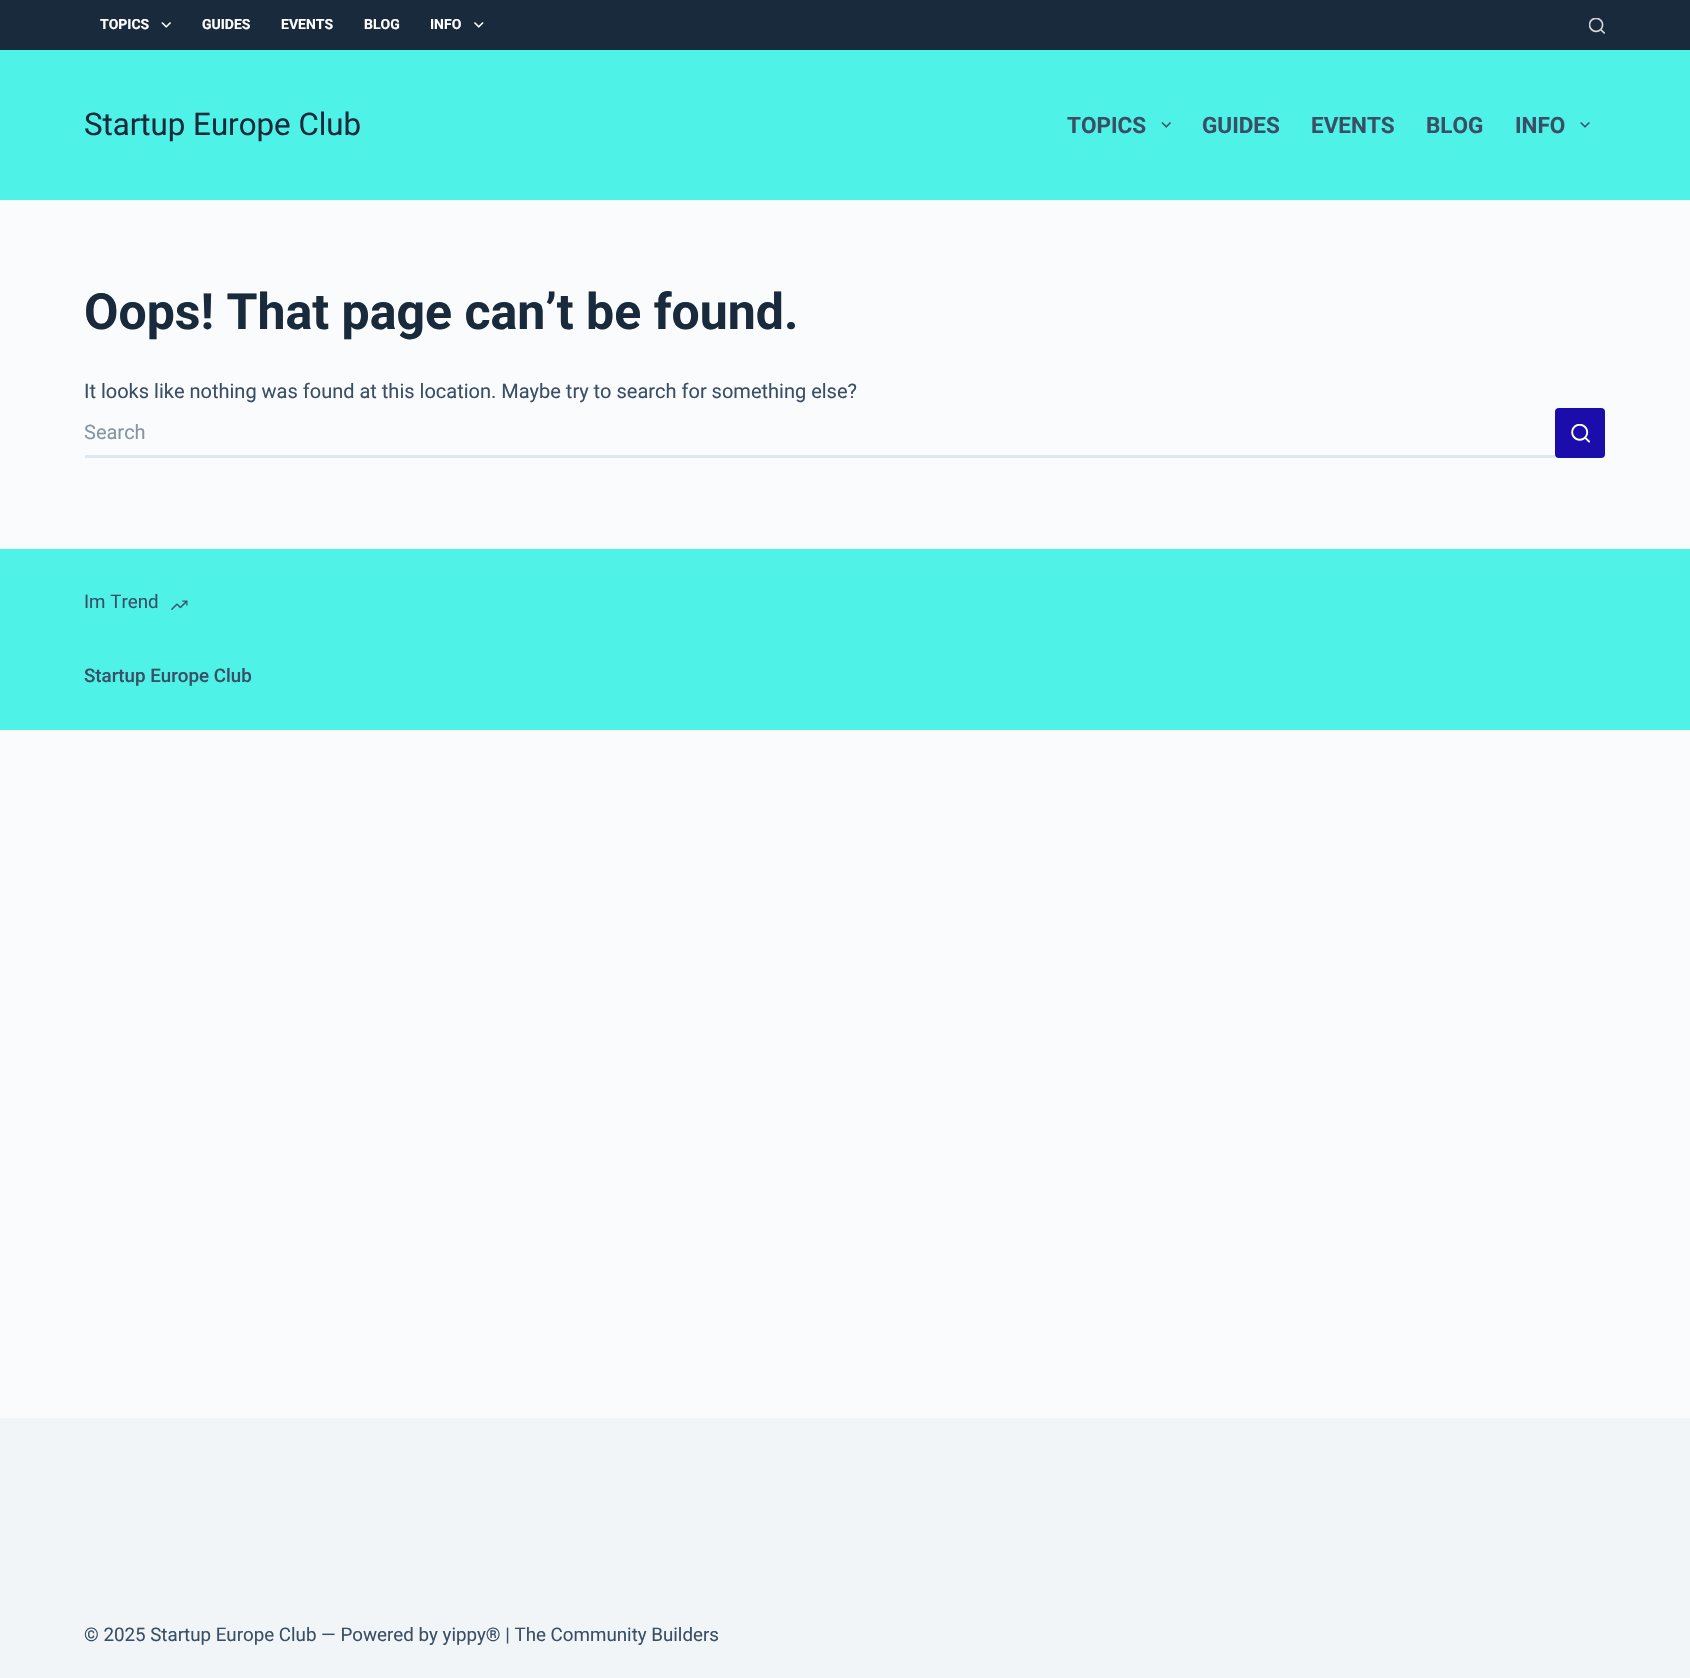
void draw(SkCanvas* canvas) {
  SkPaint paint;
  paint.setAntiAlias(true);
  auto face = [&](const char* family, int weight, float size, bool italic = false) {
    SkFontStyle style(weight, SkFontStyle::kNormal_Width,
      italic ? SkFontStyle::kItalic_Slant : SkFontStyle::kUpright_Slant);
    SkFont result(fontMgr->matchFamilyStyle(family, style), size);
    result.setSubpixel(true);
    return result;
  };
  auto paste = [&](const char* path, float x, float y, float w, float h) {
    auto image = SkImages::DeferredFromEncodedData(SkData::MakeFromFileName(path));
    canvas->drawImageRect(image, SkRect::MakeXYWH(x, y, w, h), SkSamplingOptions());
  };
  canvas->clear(0xfffafbfc);
  paint.setColor(0xff192a3d);
  canvas->drawRect(SkRect::MakeXYWH(0, 0, 1690, 50), paint);
  paste("img/1.png", 161, 22, 10, 6);
  paste("img/2.png", 474, 22, 10, 6);
  paste("img/3.png", 1589, 18, 16, 16);
  paint.setColor(0xff4ff2e7);
  canvas->drawRect(SkRect::MakeXYWH(0, 50, 1690, 150), paint);
  paste("img/4.png", 1161, 122, 10, 6);
  paste("img/5.png", 1580, 122, 10, 6);
  paint.setColor(0xffe1e8ed);
  canvas->drawRect(SkRect::MakeXYWH(85, 455, 1470, 3), paint);
  paint.setColor(0xff1a0dab);
  canvas->drawRoundRect(SkRect::MakeXYWH(1555, 408, 50, 50), 4, 4, paint);
  paste("img/6.png", 1571, 424, 19, 19);
  paint.setColor(0xff4ff2e7);
  canvas->drawRect(SkRect::MakeXYWH(0, 549, 1690, 181), paint);
  paste("img/7.png", 171, 600, 17, 10);
  paint.setColor(0xfff2f5f7);
  canvas->drawRect(SkRect::MakeXYWH(0, 1418, 1690, 260), paint);
  auto f0 = face("Roboto", 700, 14);
  paint.setColor(0xffffffff);
  {
    const struct { const char* s; float x, y; } items[] = {
      {"TOPICS", 100, 29},
      {"GUIDES", 202, 29},
      {"EVENTS", 281, 29},
      {"BLOG", 364, 29},
      {"INFO", 430, 29},
    };
    for (auto [s, x, y] : items) {
      canvas->drawString(s, x, y, f0, paint);
    }
  }
  auto f1 = face("Roboto", 400, 31.25f);
  paint.setColor(0xff192a3d);
  canvas->drawString("Startup Europe Club", 84, 135, f1, paint);
  auto f2 = face("Roboto", 700, 22.5f);
  paint.setColor(0xff3a4f66);
  {
    const struct { const char* s; float x, y; } items[] = {
      {"TOPICS", 1067, 133},
      {"GUIDES", 1202, 133},
      {"EVENTS", 1311, 133},
      {"BLOG", 1426, 133},
      {"INFO", 1515, 133},
    };
    for (auto [s, x, y] : items) {
      canvas->drawString(s, x, y, f2, paint);
    }
  }
  auto f3 = face("Roboto", 700, 50);
  paint.setColor(0xff192a3d);
  canvas->drawString("Oops! That page can’t be found.", 84, 329, f3, paint);
  auto f4 = face("Roboto", 400, 20);
  paint.setColor(0xff3a4f66);
  canvas->drawString("It looks like nothing was found at this location. Maybe try to search for something else?", 84, 398, f4, paint);
  paint.setColor(0xff8794a2);
  canvas->drawString("Search", 84, 439, f4, paint);
  auto f5 = face("Roboto", 400, 18.75f);
  paint.setColor(0xff3a4f66);
  canvas->drawString("Im Trend", 84, 608, f5, paint);
  auto f6 = face("Roboto", 500, 18.75f);
  canvas->drawString("Startup Europe Club", 84, 682, f6, paint);
  canvas->drawString("© 2025 Startup Europe Club — Powered by yippy® | The Community Builders", 84, 1641, f5, paint);
}
